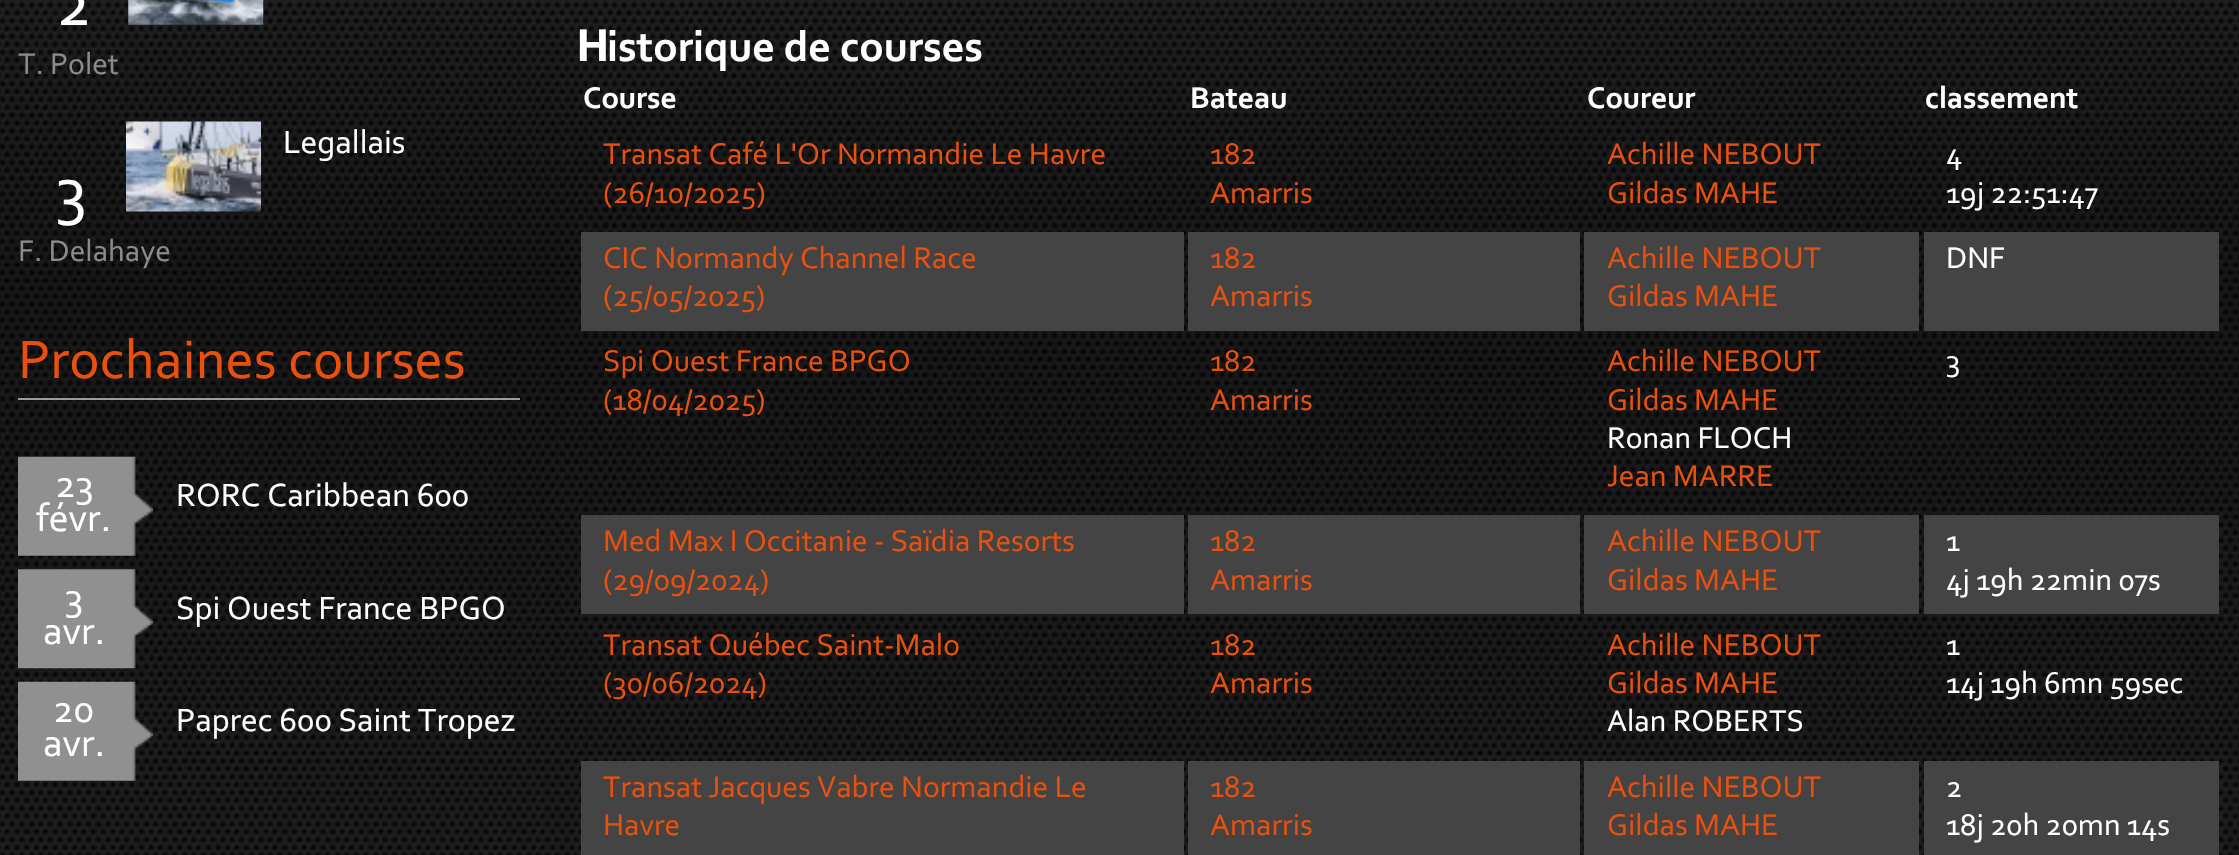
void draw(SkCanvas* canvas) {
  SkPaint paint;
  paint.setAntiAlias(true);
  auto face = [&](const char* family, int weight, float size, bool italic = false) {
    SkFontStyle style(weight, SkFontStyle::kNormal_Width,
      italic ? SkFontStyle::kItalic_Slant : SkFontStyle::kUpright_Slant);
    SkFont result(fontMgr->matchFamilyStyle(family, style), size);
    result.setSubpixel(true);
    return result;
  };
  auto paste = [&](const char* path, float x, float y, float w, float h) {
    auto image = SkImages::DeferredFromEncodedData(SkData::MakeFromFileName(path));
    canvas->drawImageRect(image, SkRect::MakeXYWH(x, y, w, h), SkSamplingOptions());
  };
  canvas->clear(0xffffffff);
  paste("img/1.png", 0, 0, 2239, 855);
  paste("img/2.png", 128, 0, 136, 25);
  paste("img/3.png", 126, 121, 135, 91);
  paint.setColor(0xff9d9d9d);
  canvas->drawRect(SkRect::MakeXYWH(18, 398, 502, 2), paint);
  paste("img/4.png", 18, 456, 135, 100);
  paste("img/5.png", 18, 569, 135, 100);
  paste("img/6.png", 18, 681, 135, 100);
  {
    const struct { float x, y, w, h; SkColor color; } items[] = {
      {581, 232, 603, 99, 0xff444444},
      {1188, 232, 392, 99, 0xff444444},
      {1584, 232, 335, 99, 0xff444444},
      {1924, 232, 295, 99, 0xff444444},
      {581, 515, 603, 99, 0xff444444},
      {1188, 515, 392, 99, 0xff444444},
      {1584, 515, 335, 99, 0xff444444},
      {1924, 515, 295, 99, 0xff444444},
      {581, 761, 603, 94, 0xff444444},
      {1188, 761, 392, 94, 0xff444444},
      {1584, 761, 335, 94, 0xff444444},
      {1924, 761, 295, 94, 0xff444444},
    };
    for (auto [x, y, w, h, color] : items) {
      paint.setColor(color);
      canvas->drawRect(SkRect::MakeXYWH(x, y, w, h), paint);
    }
  }
  auto f0 = face("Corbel", 400, 68);
  paint.setColor(0xffffffff);
  canvas->drawString("2", 56, 25, f0, paint);
  auto f1 = face("Corbel", 400, 31.5f);
  paint.setColor(0xff8b8b8b);
  canvas->drawString("T. Polet", 18, 74, f1, paint);
  auto f2 = face("Corbel", 400, 33.75f);
  paint.setColor(0xffffffff);
  canvas->drawString("Legallais", 283, 153, f2, paint);
  canvas->drawString("3", 56, 212, f0, paint);
  paint.setColor(0xff8b8b8b);
  canvas->drawString("F. Delahaye", 18, 261, f1, paint);
  auto f3 = face("Corbel", 400, 56.75f);
  paint.setColor(0xffe9500e);
  canvas->drawString("Prochaines courses", 18, 378, f3, paint);
  auto f4 = face("Corbel", 400, 40);
  paint.setColor(0xffffffff);
  canvas->drawString("23", 55, 497, f4, paint);
  canvas->drawString("févr.", 36, 531, f4, paint);
  canvas->drawString("RORC Caribbean 600", 176, 506, f2, paint);
  canvas->drawString("3", 65, 610, f4, paint);
  canvas->drawString("avr.", 43, 644, f4, paint);
  canvas->drawString("Spi Ouest France BPGO", 176, 619, f2, paint);
  canvas->drawString("20", 53, 722, f4, paint);
  canvas->drawString("avr.", 43, 756, f4, paint);
  canvas->drawString("Paprec 600 Saint Tropez", 176, 731, f2, paint);
  auto f5 = face("Noto Sans", 700, 44);
  canvas->drawString("H", 576, 61, f5, paint);
  auto f6 = face("Corbel", 700, 44);
  canvas->drawString("istorique de courses", 607, 61, f6, paint);
  auto f7 = face("Corbel", 700, 31.5f);
  {
    const struct { const char* s; float x, y; } items[] = {
      {"Course", 583, 108},
      {"Bateau", 1190, 108},
      {"Coureur", 1587, 108},
      {"classement", 1925, 108},
    };
    for (auto [s, x, y] : items) {
      canvas->drawString(s, x, y, f7, paint);
    }
  }
  paint.setColor(0xffe9500e);
  {
    const struct { const char* s; float x, y; } items[] = {
      {"Transat Café L'Or Normandie Le Havre", 603, 164},
      {"(26/10/2025)", 603, 203},
      {"182", 1210, 164},
      {"Amarris", 1210, 203},
      {"Achille NEBOUT", 1607, 164},
      {"Gildas MAHE", 1607, 203},
    };
    for (auto [s, x, y] : items) {
      canvas->drawString(s, x, y, f1, paint);
    }
  }
  paint.setColor(0xffffffff);
  canvas->drawString("4", 1946, 164, f1, paint);
  canvas->drawString("19j 22:51:47", 1946, 203, f1, paint);
  paint.setColor(0xffe9500e);
  {
    const struct { const char* s; float x, y; } items[] = {
      {"CIC Normandy Channel Race", 603, 268},
      {"(25/05/2025)", 603, 306},
      {"182", 1210, 268},
      {"Amarris", 1210, 306},
      {"Achille NEBOUT", 1607, 268},
      {"Gildas MAHE", 1607, 306},
    };
    for (auto [s, x, y] : items) {
      canvas->drawString(s, x, y, f1, paint);
    }
  }
  paint.setColor(0xffffffff);
  canvas->drawString("DNF", 1946, 268, f1, paint);
  paint.setColor(0xffe9500e);
  {
    const struct { const char* s; float x, y; } items[] = {
      {"Spi Ouest France BPGO", 603, 371},
      {"(18/04/2025)", 603, 410},
      {"182", 1210, 371},
      {"Amarris", 1210, 410},
      {"Achille NEBOUT", 1607, 371},
      {"Gildas MAHE", 1607, 410},
    };
    for (auto [s, x, y] : items) {
      canvas->drawString(s, x, y, f1, paint);
    }
  }
  paint.setColor(0xffffffff);
  canvas->drawString("Ronan FLOCH", 1607, 448, f1, paint);
  paint.setColor(0xffe9500e);
  canvas->drawString("Jean MARRE", 1607, 486, f1, paint);
  paint.setColor(0xffffffff);
  canvas->drawString("3", 1946, 371, f1, paint);
  paint.setColor(0xffe9500e);
  {
    const struct { const char* s; float x, y; } items[] = {
      {"Med Max I Occitanie - Saïdia Resorts", 603, 551},
      {"(29/09/2024)", 603, 590},
      {"182", 1210, 551},
      {"Amarris", 1210, 590},
      {"Achille NEBOUT", 1607, 551},
      {"Gildas MAHE", 1607, 590},
    };
    for (auto [s, x, y] : items) {
      canvas->drawString(s, x, y, f1, paint);
    }
  }
  paint.setColor(0xffffffff);
  canvas->drawString("1", 1946, 551, f1, paint);
  canvas->drawString("4j 19h 22min 07s", 1946, 590, f1, paint);
  paint.setColor(0xffe9500e);
  {
    const struct { const char* s; float x, y; } items[] = {
      {"Transat Québec Saint-Malo", 603, 655},
      {"(30/06/2024)", 603, 693},
      {"182", 1210, 655},
      {"Amarris", 1210, 693},
      {"Achille NEBOUT", 1607, 655},
      {"Gildas MAHE", 1607, 693},
    };
    for (auto [s, x, y] : items) {
      canvas->drawString(s, x, y, f1, paint);
    }
  }
  paint.setColor(0xffffffff);
  {
    const struct { const char* s; float x, y; } items[] = {
      {"Alan ROBERTS", 1607, 731},
      {"1", 1946, 655},
      {"14j 19h 6mn 59sec", 1946, 693},
    };
    for (auto [s, x, y] : items) {
      canvas->drawString(s, x, y, f1, paint);
    }
  }
  paint.setColor(0xffe9500e);
  {
    const struct { const char* s; float x, y; } items[] = {
      {"Transat Jacques Vabre Normandie Le", 603, 797},
      {"Havre", 603, 835},
      {"182", 1210, 797},
      {"Amarris", 1210, 835},
      {"Achille NEBOUT", 1607, 797},
      {"Gildas MAHE", 1607, 835},
    };
    for (auto [s, x, y] : items) {
      canvas->drawString(s, x, y, f1, paint);
    }
  }
  paint.setColor(0xffffffff);
  canvas->drawString("2", 1946, 797, f1, paint);
  canvas->drawString("18j 20h 20mn 14s", 1946, 835, f1, paint);
}
